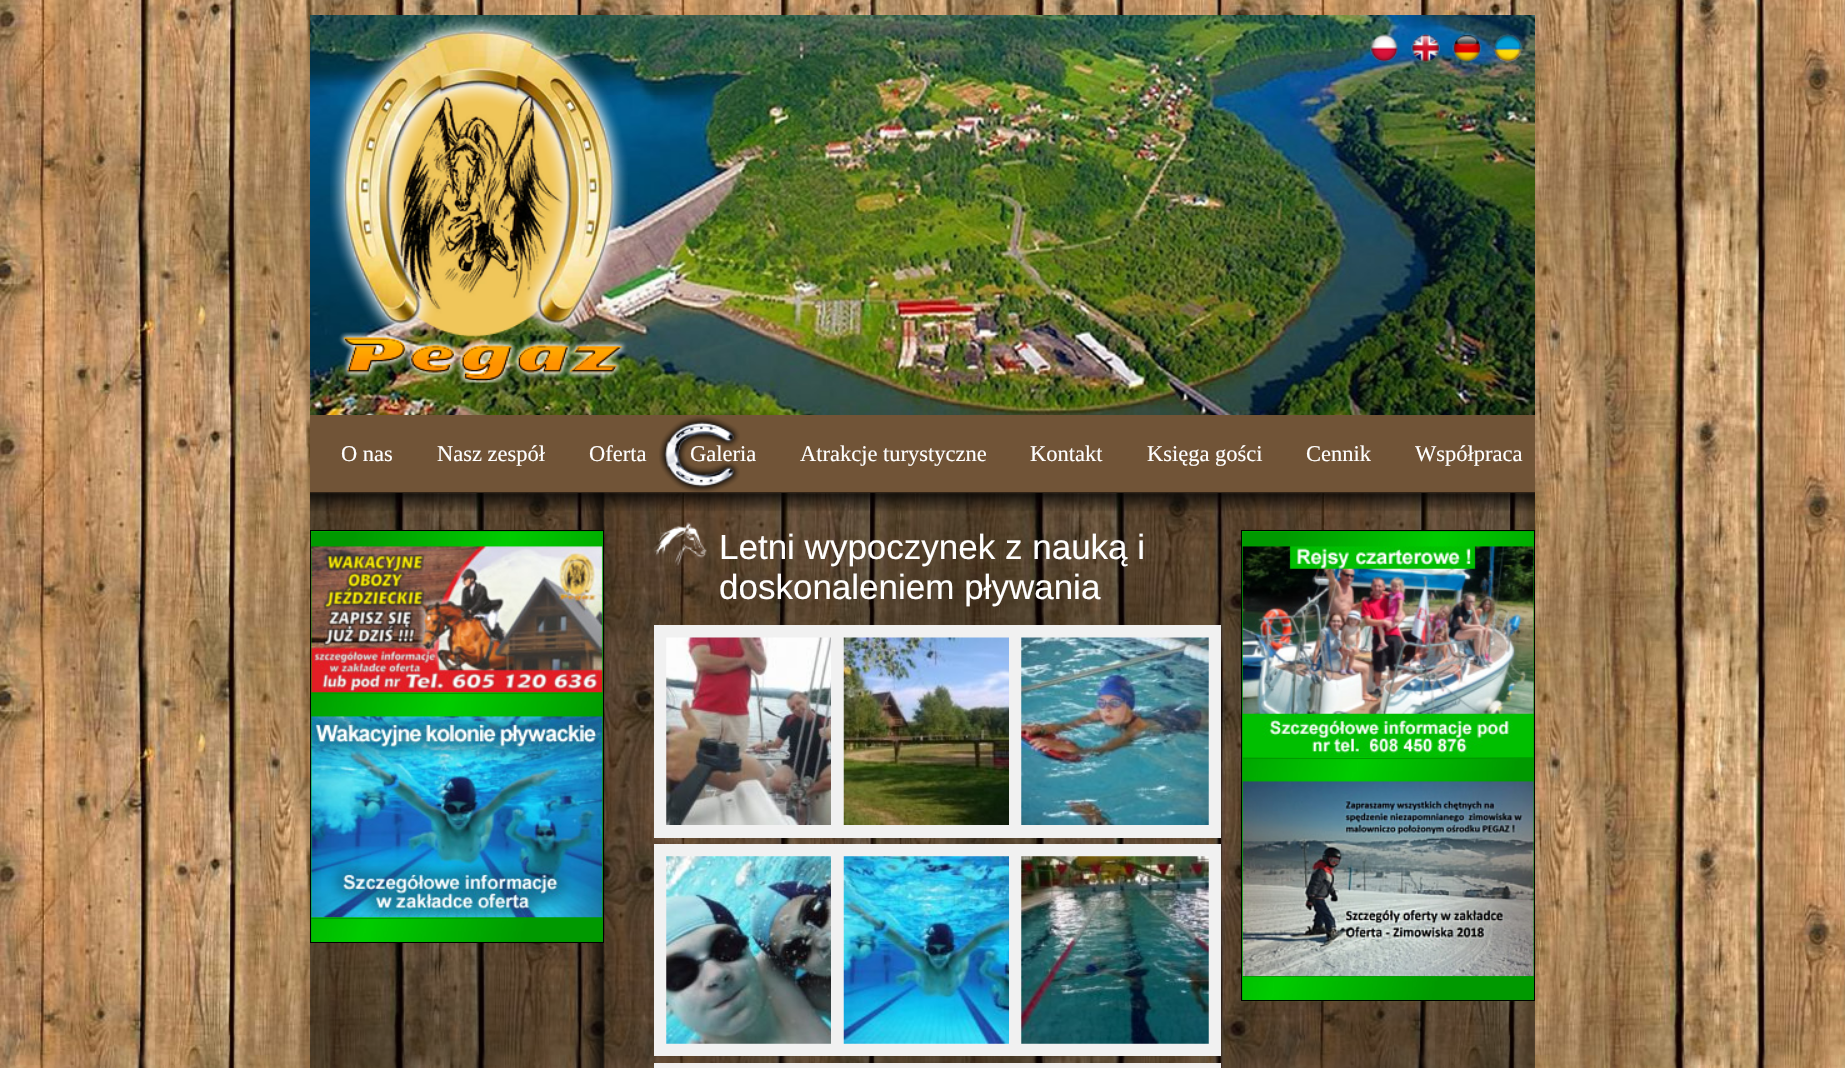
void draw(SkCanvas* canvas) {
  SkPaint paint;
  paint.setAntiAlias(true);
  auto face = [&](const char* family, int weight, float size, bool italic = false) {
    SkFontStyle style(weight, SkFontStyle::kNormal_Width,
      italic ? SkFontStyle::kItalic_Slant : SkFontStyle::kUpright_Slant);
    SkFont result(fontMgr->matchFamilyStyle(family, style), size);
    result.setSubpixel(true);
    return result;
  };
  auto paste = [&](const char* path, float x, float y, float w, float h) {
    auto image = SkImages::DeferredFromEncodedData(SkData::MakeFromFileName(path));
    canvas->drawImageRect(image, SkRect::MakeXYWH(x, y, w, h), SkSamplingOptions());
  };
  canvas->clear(0xffffffff);
  paste("img/1.png", 0, 0, 1845, 1068);
  paste("img/2.png", 310, 15, 1225, 400);
  paste("img/3.png", 330, 16, 298, 367);
  paste("img/4.png", 1370, 34, 28, 28);
  paste("img/5.png", 1411, 33, 29, 30);
  paste("img/6.png", 1452, 33, 30, 29);
  paste("img/7.png", 1493, 33, 30, 30);
  paint.setColor(0xff715437);
  canvas->drawRect(SkRect::MakeXYWH(310, 415, 1225, 78), paint);
  paste("img/8.png", 659, 416, 81, 76);
  paint.setColor(0x80000000);
  canvas->drawRect(SkRect::MakeXYWH(310, 492, 1225, 576), paint);
  paste("img/9.png", 586, 492, 19, 576);
  paste("img/10.png", 310, 492, 1225, 19);
  paste("img/11.png", 311, 531, 292, 411);
  paint.setStroke(true);
  paint.setStrokeWidth(1);
  paint.setColor(0xff000000);
  canvas->drawRect(SkRect::MakeXYWH(310.5f, 530.5f, 293, 412), paint);
  paint.setStroke(false);
  paint.setColor(0xff009900);
  canvas->drawRect(SkRect::MakeXYWH(311, 693, 292, 1), paint);
  paste("img/12.png", 311, 546, 292, 147);
  canvas->drawRect(SkRect::MakeXYWH(311, 918, 213, 1), paint);
  paste("img/13.png", 311, 716, 292, 202);
  paste("img/14.png", 654, 522, 53, 44);
  paint.setStroke(true);
  paint.setStrokeWidth(13);
  paint.setColor(0xfff1f1f1);
  canvas->drawRect(SkRect::MakeXYWH(660.5f, 631.5f, 199, 200), paint);
  paste("img/15.png", 666, 637, 165, 188);
  canvas->drawRect(SkRect::MakeXYWH(837.5f, 631.5f, 200, 200), paint);
  paste("img/16.png", 843, 637, 166, 188);
  canvas->drawRect(SkRect::MakeXYWH(1015.5f, 631.5f, 199, 200), paint);
  paste("img/17.png", 1021, 637, 188, 188);
  canvas->drawRect(SkRect::MakeXYWH(660.5f, 850.5f, 199, 199), paint);
  paste("img/18.png", 666, 856, 165, 188);
  canvas->drawRect(SkRect::MakeXYWH(837.5f, 850.5f, 200, 199), paint);
  paste("img/19.png", 843, 856, 166, 188);
  canvas->drawRect(SkRect::MakeXYWH(1015.5f, 850.5f, 199, 199), paint);
  paste("img/20.png", 1021, 856, 188, 188);
  canvas->drawRect(SkRect::MakeXYWH(660.5f, 1069.5f, 199, 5), paint);
  canvas->drawRect(SkRect::MakeXYWH(837.5f, 1069.5f, 200, 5), paint);
  canvas->drawRect(SkRect::MakeXYWH(1015.5f, 1069.5f, 199, 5), paint);
  paste("img/21.png", 1241, 531, 294, 471);
  paint.setStrokeWidth(1);
  paint.setColor(0xff000000);
  canvas->drawRect(SkRect::MakeXYWH(1241.5f, 530.5f, 293, 470), paint);
  paint.setStroke(false);
  paint.setColor(0xff009900);
  canvas->drawRect(SkRect::MakeXYWH(1243, 758, 271, 1), paint);
  paste("img/22.png", 1242, 546, 292, 212);
  canvas->drawRect(SkRect::MakeXYWH(1243, 976, 193, 1), paint);
  paste("img/23.png", 1242, 781, 292, 196);
  auto f0 = face("Liberation Serif", 400, 22.5f);
  paint.setColor(0xffffffff);
  {
    const struct { const char* s; float x, y; } items[] = {
      {"O nas", 341, 461},
      {"Nasz zespół", 437, 461},
      {"Oferta", 589, 461},
      {"Galeria", 690, 461},
      {"Atrakcje turystyczne", 800, 461},
      {"Kontakt", 1030, 461},
      {"Księga gości", 1147, 461},
      {"Cennik", 1306, 461},
      {"Współpraca", 1415, 461},
    };
    for (auto [s, x, y] : items) {
      canvas->drawString(s, x, y, f0, paint);
    }
  }
  auto f1 = face("Liberation Sans", 400, 35);
  canvas->drawString("Letni wypoczynek z nauką i", 719, 559, f1, paint);
  canvas->drawString("doskonaleniem pływania", 719, 599, f1, paint);
}
